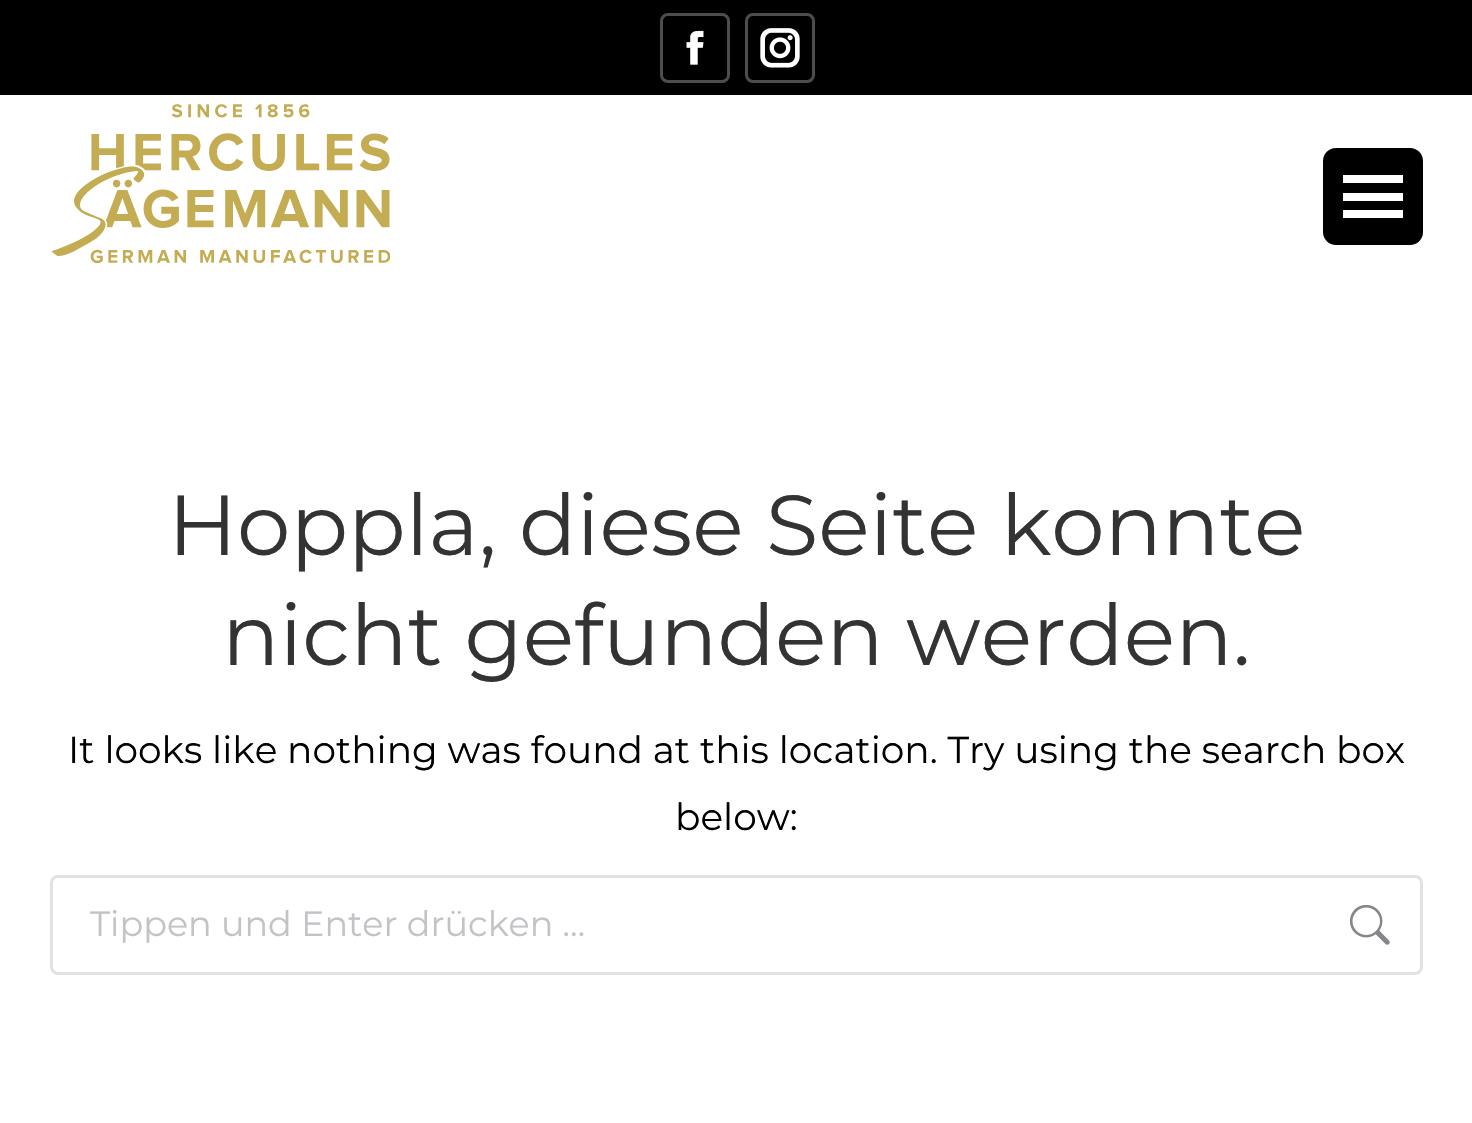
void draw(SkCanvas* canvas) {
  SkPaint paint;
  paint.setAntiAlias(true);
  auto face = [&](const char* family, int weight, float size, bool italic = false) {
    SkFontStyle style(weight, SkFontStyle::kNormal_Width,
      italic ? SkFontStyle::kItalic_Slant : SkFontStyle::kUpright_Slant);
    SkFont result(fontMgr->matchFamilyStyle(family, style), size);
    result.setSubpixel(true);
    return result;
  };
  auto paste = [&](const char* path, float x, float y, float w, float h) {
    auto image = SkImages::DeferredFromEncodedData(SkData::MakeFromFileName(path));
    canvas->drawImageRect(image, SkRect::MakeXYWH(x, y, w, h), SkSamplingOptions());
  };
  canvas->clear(0xffffffff);
  paint.setColor(0xff000000);
  canvas->drawRect(SkRect::MakeXYWH(0, 0, 1472, 95), paint);
  paint.setStroke(true);
  paint.setStrokeWidth(3);
  paint.setColor(0xff4d4d4d);
  canvas->drawRoundRect(SkRect::MakeXYWH(661.5f, 14.5f, 67, 67), 6.5f, 6.5f, paint);
  paste("img/1.png", 686, 30, 18, 35);
  canvas->drawRoundRect(SkRect::MakeXYWH(746.5f, 14.5f, 67, 67), 6.5f, 6.5f, paint);
  paste("img/2.png", 760, 28, 40, 40);
  paste("img/3.png", 51, 104, 339, 159);
  paint.setStroke(false);
  paint.setColor(0xff000000);
  canvas->drawRoundRect(SkRect::MakeXYWH(1323, 148, 100, 97), 13, 13, paint);
  {
    const struct { float x, y, w, h; SkColor color; } items[] = {
      {1343, 175, 60, 8, 0xffffffff},
      {1343, 193, 60, 8, 0xffffffff},
      {1343, 210, 60, 8, 0xffffffff},
    };
    for (auto [x, y, w, h, color] : items) {
      paint.setColor(color);
      canvas->drawRect(SkRect::MakeXYWH(x, y, w, h), paint);
    }
  }
  paint.setStroke(true);
  paint.setColor(0xffe2e2e2);
  canvas->drawRoundRect(SkRect::MakeXYWH(51.5f, 876.5f, 1370, 97), 6.5f, 6.5f, paint);
  paste("img/4.png", 1350, 905, 40, 40);
  auto f0 = face("Montserrat", 400, 85);
  paint.setStroke(false);
  paint.setColor(0xff333333);
  canvas->drawString("Hoppla, diese Seite konnte", 168, 555, f0, paint);
  canvas->drawString("nicht gefunden werden.", 222, 665, f0, paint);
  auto f1 = face("Montserrat", 400, 37.5f);
  paint.setColor(0xff000000);
  canvas->drawString("It looks like nothing was found at this location. Try using the search box", 68, 763, f1, paint);
  canvas->drawString("below:", 675, 830, f1, paint);
  auto f2 = face("Montserrat", 400, 35);
  paint.setColor(0xffc2c3c6);
  canvas->drawString("Tippen und Enter drücken …", 90, 936, f2, paint);
}
